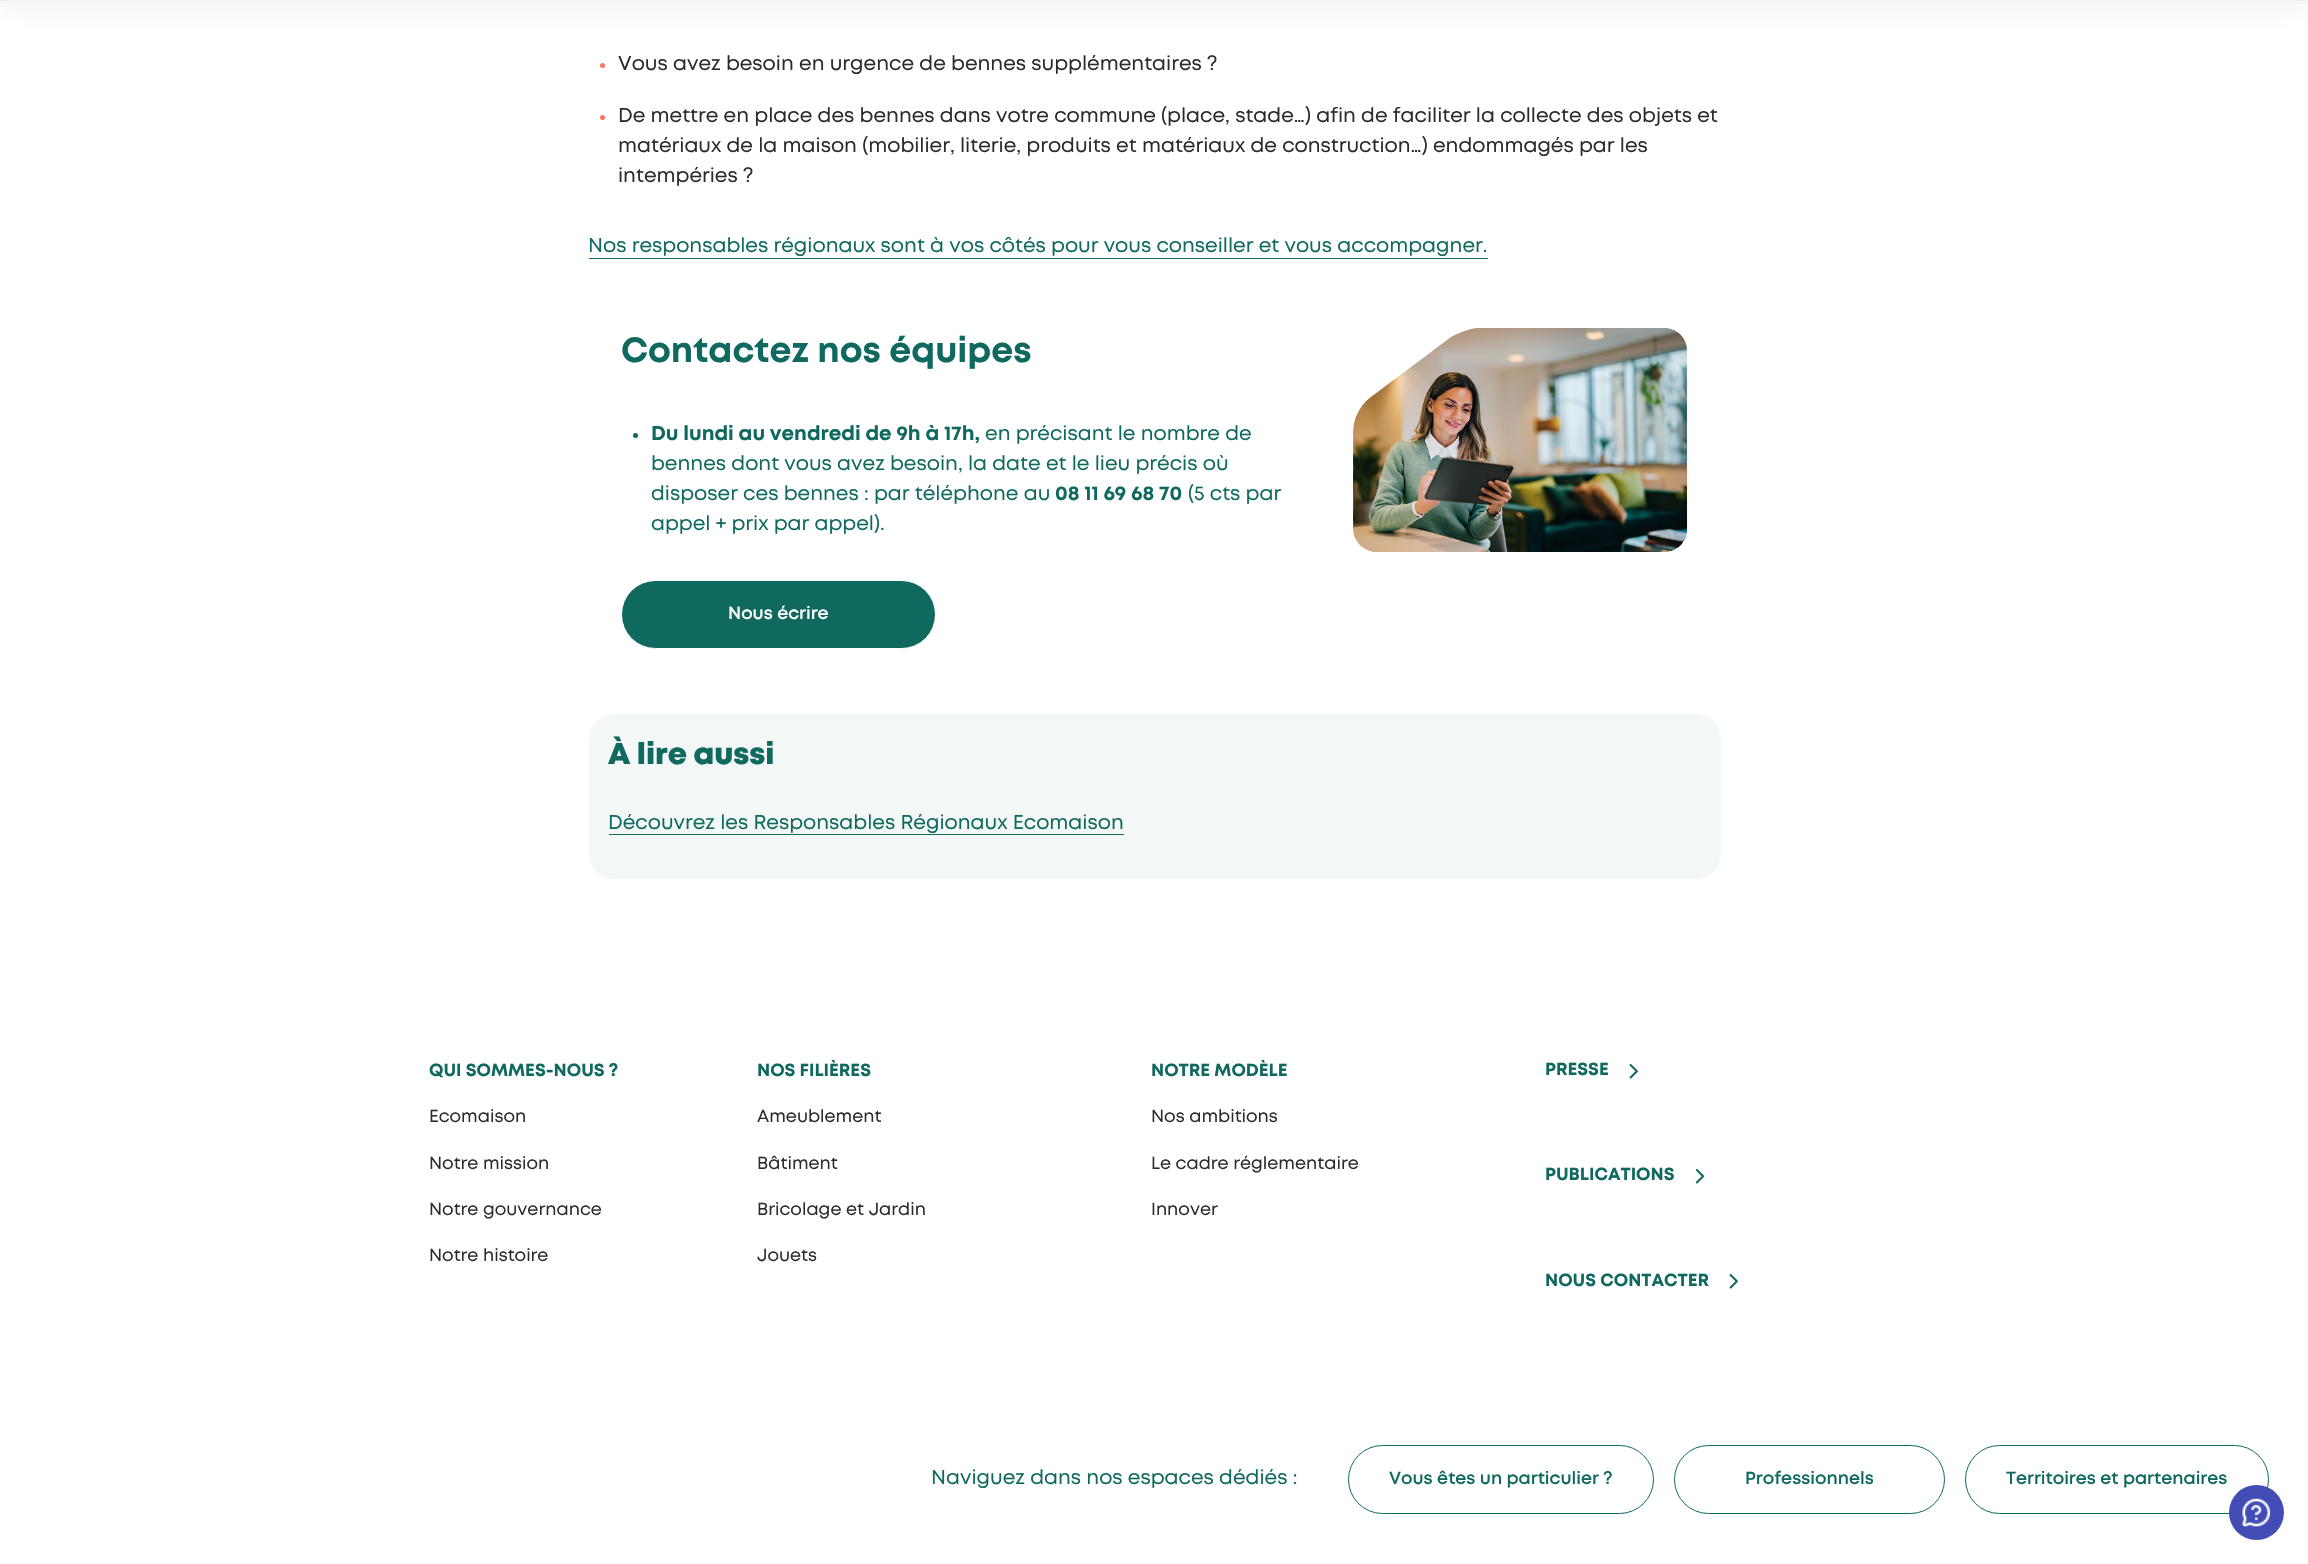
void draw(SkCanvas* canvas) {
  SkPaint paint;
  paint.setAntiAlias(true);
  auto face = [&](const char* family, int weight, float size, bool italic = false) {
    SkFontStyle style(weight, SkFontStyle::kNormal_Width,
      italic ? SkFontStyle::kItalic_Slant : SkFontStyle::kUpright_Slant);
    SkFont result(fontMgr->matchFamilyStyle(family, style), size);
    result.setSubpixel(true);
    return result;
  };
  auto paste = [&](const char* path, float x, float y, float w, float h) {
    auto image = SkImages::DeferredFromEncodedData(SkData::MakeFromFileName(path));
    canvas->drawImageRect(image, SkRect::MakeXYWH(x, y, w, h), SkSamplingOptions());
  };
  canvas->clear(0xffffffff);
  paint.setColor(0x142a2c2b);
  paint.setMaskFilter(SkMaskFilter::MakeBlur(kNormal_SkBlurStyle, 15));
  canvas->drawRect(SkRect::MakeXYWH(0, -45, 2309, 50), paint);
  paint.setMaskFilter(nullptr);
  paint.setColor(0xffedf0f5);
  canvas->drawRect(SkRect::MakeXYWH(0, 0, 2308, 1), paint);
  paint.setColor(0xffff735f);
  canvas->drawCircle(602.5f, 65.5f, 2.5f, paint);
  canvas->drawCircle(602.5f, 117.5f, 2.5f, paint);
  paint.setColor(0xff0f695f);
  canvas->drawRect(SkRect::MakeXYWH(589, 258, 899, 1), paint);
  canvas->drawCircle(635.5f, 435.5f, 2.5f, paint);
  canvas->drawRoundRect(SkRect::MakeXYWH(621.5f, 580.5f, 314, 68), 34, 34, paint);
  paint.setStroke(true);
  paint.setStrokeWidth(1);
  paint.setColor(0xffffffff);
  canvas->drawRoundRect(SkRect::MakeXYWH(621.5f, 580.5f, 314, 68), 34, 34, paint);
  paste("img/1.png", 1353, 328, 335, 224);
  paint.setStroke(false);
  paint.setColor(0xfff3f8f7);
  canvas->drawRoundRect(SkRect::MakeXYWH(589, 714, 1132, 165), 25, 25, paint);
  paint.setColor(0xff0f695f);
  canvas->drawRect(SkRect::MakeXYWH(609, 834, 515, 1), paint);
  paste("img/2.png", 1629, 1064, 9, 15);
  paste("img/3.png", 1695, 1169, 10, 15);
  paste("img/2.png", 1729, 1274, 9, 15);
  paint.setStroke(true);
  canvas->drawRoundRect(SkRect::MakeXYWH(1348.5f, 1445.5f, 305, 68), 34, 34, paint);
  canvas->drawRoundRect(SkRect::MakeXYWH(1674.5f, 1445.5f, 270, 68), 34, 34, paint);
  canvas->drawRoundRect(SkRect::MakeXYWH(1965.5f, 1445.5f, 303, 68), 34, 34, paint);
  paint.setStroke(false);
  paint.setColor(0xff414db5);
  canvas->drawCircle(2256.5f, 1512.5f, 27.5f, paint);
  paste("img/4.png", 2242, 1498, 29, 29);
  auto f0 = face("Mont", 400, 20);
  paint.setColor(0xff2a2c2b);
  {
    const struct { const char* s; float x, y; } items[] = {
      {"Vous avez besoin en urgence de bennes supplémentaires ?", 618, 70},
      {"De mettre en place des bennes dans votre commune (place, stade…) afin de faciliter la collecte des objets et", 618, 122},
      {"matériaux de la maison (mobilier, literie, produits et matériaux de construction…) endommagés par les", 618, 152},
      {"intempéries ?", 618, 182},
    };
    for (auto [s, x, y] : items) {
      canvas->drawString(s, x, y, f0, paint);
    }
  }
  paint.setColor(0xff0f695f);
  canvas->drawString("Nos responsables régionaux sont à vos côtés pour vous conseiller et vous accompagner.", 588, 252, f0, paint);
  auto f1 = face("Mont", 700, 35);
  canvas->drawString("Contactez nos équipes", 621, 362, f1, paint);
  auto f2 = face("Mont", 700, 20);
  canvas->drawString("Du lundi au vendredi de 9h à 17h,", 651, 440, f2, paint);
  {
    const struct { const char* s; float x, y; } items[] = {
      {"en précisant le nombre de", 985, 440},
      {"bennes dont vous avez besoin, la date et le lieu précis où", 651, 470},
      {"disposer ces bennes : par téléphone au", 651, 500},
    };
    for (auto [s, x, y] : items) {
      canvas->drawString(s, x, y, f0, paint);
    }
  }
  canvas->drawString("08 11 69 68 70", 1055, 500, f2, paint);
  canvas->drawString("(5 cts par", 1188, 500, f0, paint);
  canvas->drawString("appel + prix par appel).", 651, 530, f0, paint);
  auto f3 = face("Mont", 600, 17.5f);
  paint.setColor(0xffffffff);
  canvas->drawString("Nous écrire", 728, 619, f3, paint);
  auto f4 = face("Mont", 900, 30);
  paint.setColor(0xff0f695f);
  canvas->drawString("À lire aussi", 608, 764, f4, paint);
  canvas->drawString("Découvrez les Responsables Régionaux Ecomaison", 608, 829, f0, paint);
  auto f5 = face("Mont", 700, 17.5f);
  canvas->drawString("QUI SOMMES-NOUS ?", 429, 1076, f5, paint);
  auto f6 = face("Mont", 400, 17.5f);
  paint.setColor(0xff2a2c2b);
  {
    const struct { const char* s; float x, y; } items[] = {
      {"Ecomaison", 429, 1122},
      {"Notre mission", 429, 1169},
      {"Notre gouvernance", 429, 1215},
      {"Notre histoire", 429, 1261},
    };
    for (auto [s, x, y] : items) {
      canvas->drawString(s, x, y, f6, paint);
    }
  }
  paint.setColor(0xff0f695f);
  canvas->drawString("NOS FILIÈRES", 757, 1076, f5, paint);
  paint.setColor(0xff2a2c2b);
  {
    const struct { const char* s; float x, y; } items[] = {
      {"Ameublement", 757, 1122},
      {"Bâtiment", 757, 1169},
      {"Bricolage et Jardin", 757, 1215},
      {"Jouets", 757, 1261},
    };
    for (auto [s, x, y] : items) {
      canvas->drawString(s, x, y, f6, paint);
    }
  }
  paint.setColor(0xff0f695f);
  canvas->drawString("NOTRE MODÈLE", 1151, 1076, f5, paint);
  paint.setColor(0xff2a2c2b);
  {
    const struct { const char* s; float x, y; } items[] = {
      {"Nos ambitions", 1151, 1122},
      {"Le cadre réglementaire", 1151, 1169},
      {"Innover", 1151, 1215},
    };
    for (auto [s, x, y] : items) {
      canvas->drawString(s, x, y, f6, paint);
    }
  }
  paint.setColor(0xff0f695f);
  {
    const struct { const char* s; float x, y; } items[] = {
      {"PRESSE", 1545, 1075},
      {"PUBLICATIONS", 1545, 1180},
      {"NOUS CONTACTER", 1545, 1286},
    };
    for (auto [s, x, y] : items) {
      canvas->drawString(s, x, y, f5, paint);
    }
  }
  canvas->drawString("Naviguez dans nos espaces dédiés :", 931, 1484, f0, paint);
  {
    const struct { const char* s; float x, y; } items[] = {
      {"Vous êtes un particulier ?", 1389, 1484},
      {"Professionnels", 1745, 1484},
      {"Territoires et partenaires", 2006, 1484},
    };
    for (auto [s, x, y] : items) {
      canvas->drawString(s, x, y, f3, paint);
    }
  }
}
